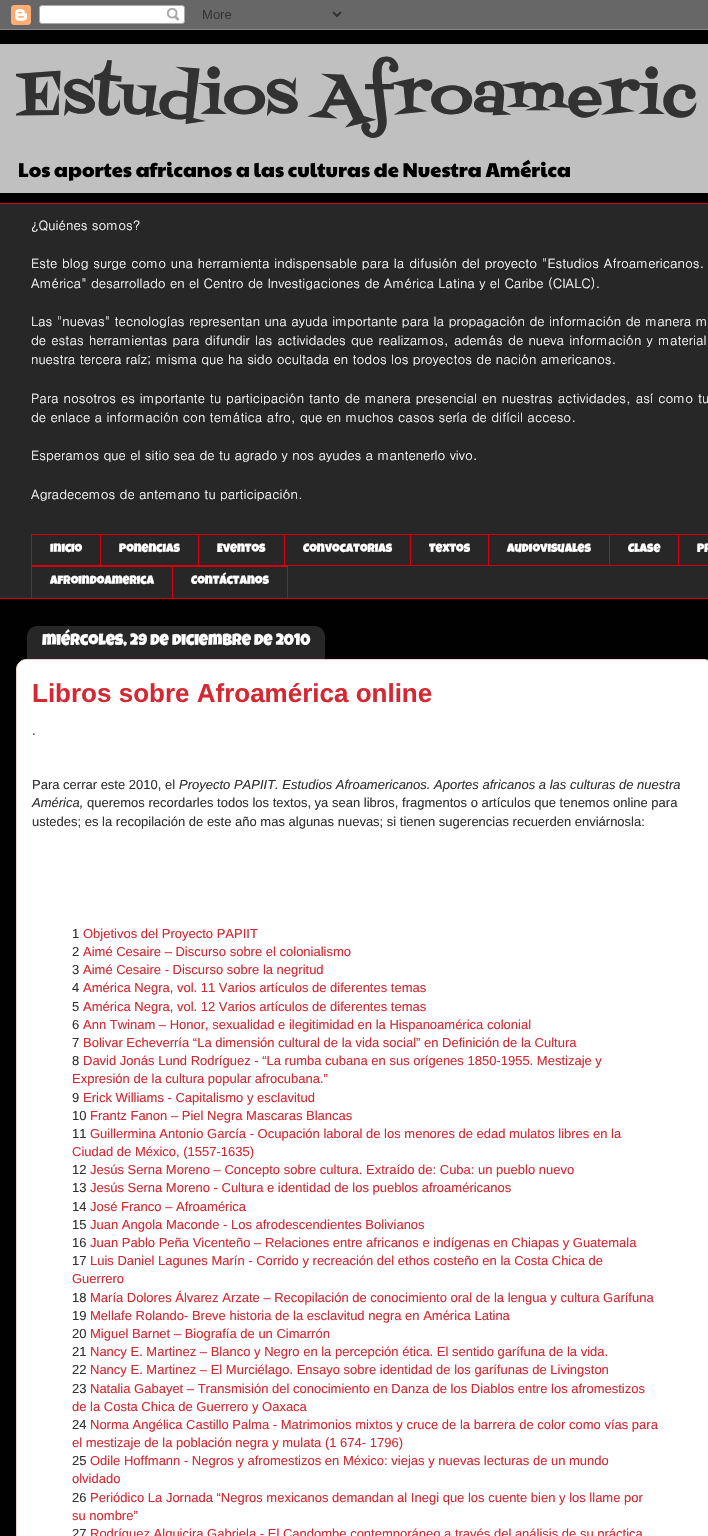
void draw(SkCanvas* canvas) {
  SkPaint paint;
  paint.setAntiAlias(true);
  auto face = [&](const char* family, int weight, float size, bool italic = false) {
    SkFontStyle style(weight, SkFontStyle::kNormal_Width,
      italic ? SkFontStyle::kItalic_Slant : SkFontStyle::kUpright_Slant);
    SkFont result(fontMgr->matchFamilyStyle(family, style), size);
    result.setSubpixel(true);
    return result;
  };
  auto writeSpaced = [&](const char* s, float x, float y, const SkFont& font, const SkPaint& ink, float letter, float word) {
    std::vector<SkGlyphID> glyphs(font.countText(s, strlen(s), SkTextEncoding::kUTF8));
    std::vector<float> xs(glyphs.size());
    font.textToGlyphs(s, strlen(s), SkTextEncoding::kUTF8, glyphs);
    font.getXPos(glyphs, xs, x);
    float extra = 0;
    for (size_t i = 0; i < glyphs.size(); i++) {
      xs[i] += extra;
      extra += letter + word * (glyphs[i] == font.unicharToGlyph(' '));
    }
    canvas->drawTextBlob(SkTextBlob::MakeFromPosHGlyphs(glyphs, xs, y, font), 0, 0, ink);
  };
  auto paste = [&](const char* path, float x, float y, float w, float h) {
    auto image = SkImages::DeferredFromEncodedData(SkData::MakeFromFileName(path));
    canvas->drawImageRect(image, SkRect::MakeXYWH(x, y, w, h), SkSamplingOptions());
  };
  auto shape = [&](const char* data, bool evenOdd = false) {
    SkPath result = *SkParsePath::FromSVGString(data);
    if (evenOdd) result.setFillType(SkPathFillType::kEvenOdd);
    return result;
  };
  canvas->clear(0xff010101);
  paste("img/1.png", 0, 0, 708, 30);
  {
    const struct { float x, y, w, h; SkColor color; } items[] = {
      {0, 44, 708, 149, 0xffc0c0c0},
      {0, 204, 708, 394, 0xff272727},
      {0, 203, 708, 1, 0xffd5000b},
      {31, 534, 677, 1, 0xffd5000b},
      {31, 565, 677, 1, 0xffd5000b},
      {31, 534, 1, 32, 0xffd5000b},
      {100, 534, 1, 32, 0xffd5000b},
      {198, 534, 1, 32, 0xffd5000b},
      {284, 534, 1, 32, 0xffd5000b},
      {410, 534, 1, 32, 0xffd5000b},
      {488, 534, 1, 32, 0xffd5000b},
      {609, 534, 1, 32, 0xffd5000b},
      {678, 534, 1, 32, 0xffd5000b},
      {31, 566, 141, 1, 0xffd5000b},
      {31, 566, 1, 33, 0xffd5000b},
    };
    for (auto [x, y, w, h, color] : items) {
      paint.setColor(color);
      canvas->drawRect(SkRect::MakeXYWH(x, y, w, h), paint);
    }
  }
  paint.setStroke(true);
  paint.setStrokeWidth(1);
  canvas->drawRect(SkRect::MakeXYWH(172.5f, 566.5f, 115, 32), paint);
  paint.setStroke(false);
  canvas->drawRect(SkRect::MakeXYWH(0, 598, 708, 1), paint);
  paint.setColor(0xffffffff);
  canvas->drawPath(shape("M26 659.5H704C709 659.5 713.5 664 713.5 669V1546.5H16.5V669C16.5 664 21 659.5 26 659.5Z"), paint);
  paint.setStroke(true);
  paint.setColor(0xfff3d2cb);
  canvas->drawPath(shape("M26 659.5H704C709 659.5 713.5 664 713.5 669V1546.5H16.5V669C16.5 664 21 659.5 26 659.5Z"), paint);
  paste("img/2.png", 27, 626, 298, 33);
  canvas->save();
  canvas->clipRect(SkRect::MakeXYWH(16, 44, 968, 149));
  auto f0 = face("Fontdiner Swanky", 400, 60);
  paint.setStroke(false);
  paint.setColor(0xff323232);
  canvas->drawString("Estudios Afroameric", 16, 114, f0, paint);
  canvas->restore();
  auto f1 = face("Paytone One", 400, 20);
  paint.setColor(0xff000000);
  canvas->drawString("Los aportes africanos a las culturas de Nuestra América", 18, 177, f1, paint);
  auto f2 = face("Dotum", 400, 13);
  paint.setColor(0xffffffff);
  canvas->drawString("¿Quiénes somos?", 31, 230, f2, paint);
  writeSpaced("Este blog surge como una herramienta indispensable para la difusión del proyecto \"Estudios Afroamericanos.", 31, 268, f2, paint, 0, 0.5f);
  canvas->drawString("América\" desarrollado en el Centro de Investigaciones de América Latina y el Caribe (CIALC).", 31, 288, f2, paint);
  writeSpaced("Las \"nuevas\" tecnologías representan una ayuda importante para la propagación de información de manera m", 31, 326, f2, paint, 0, 0.2f);
  writeSpaced("de estas herramientas para difundir las actividades que realizamos, además de nueva información y material", 31, 345, f2, paint, 0, 0.9f);
  canvas->drawString("nuestra tercera raíz; misma que ha sido ocultada en todos los proyectos de nación americanos.", 31, 364, f2, paint);
  writeSpaced("Para nosotros es importante tu participación tanto de manera presencial en nuestras actividades, así como tu", 31, 403, f2, paint, 0, 0.6f);
  {
    const struct { const char* s; float x, y; } items[] = {
      {"de enlace a información con temática afro, que en muchos casos sería de difícil acceso.", 31, 422},
      {"Esperamos que el sitio sea de tu agrado y nos ayudes a mantenerlo vivo.", 31, 460},
      {"Agradecemos de antemano tu participación.", 31, 499},
    };
    for (auto [s, x, y] : items) {
      canvas->drawString(s, x, y, f2, paint);
    }
  }
  auto f3 = face("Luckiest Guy", 400, 12);
  {
    const struct { const char* s; float x, y; } items[] = {
      {"Inicio", 50, 552},
      {"Ponencias", 119, 552},
      {"Eventos", 217, 552},
      {"Convocatorias", 303, 552},
      {"Textos", 429, 552},
      {"Audiovisuales", 507, 552},
      {"Clase", 628, 552},
      {"Pr", 697, 552},
      {"Afroindoamerica", 50, 584},
      {"Contáctanos", 191, 584},
    };
    for (auto [s, x, y] : items) {
      canvas->drawString(s, x, y, f3, paint);
    }
  }
  auto f4 = face("Luckiest Guy", 400, 16);
  canvas->drawString("miércoles, 29 de diciembre de 2010", 42, 645, f4, paint);
  auto f5 = face("Liberation Sans", 700, 26);
  paint.setColor(0xffd42932);
  canvas->drawString("Libros sobre Afroamérica online", 32, 702, f5, paint);
  auto f6 = face("Liberation Sans", 400, 13);
  paint.setColor(0xff323232);
  canvas->drawString(".", 32, 735, f6, paint);
  canvas->drawString("Para cerrar este 2010, el", 32, 789, f6, paint);
  auto f7 = face("Liberation Sans", 400, 13, true);
  canvas->drawString("Proyecto PAPIIT. Estudios Afroamericanos. Aportes africanos a las culturas de nuestra", 179, 789, f7, paint);
  canvas->drawString("América,", 32, 807, f7, paint);
  {
    const struct { const char* s; float x, y; } items[] = {
      {"queremos recordarles todos los textos, ya sean libros, fragmentos o artículos que tenemos online para", 87, 807},
      {"ustedes; es la recopilación de este año mas algunas nuevas; si tienen sugerencias recuerden enviárnosla:", 32, 826},
      {"1", 72, 938},
    };
    for (auto [s, x, y] : items) {
      canvas->drawString(s, x, y, f6, paint);
    }
  }
  paint.setColor(0xffd42932);
  canvas->drawString("Objetivos del Proyecto PAPIIT", 83, 938, f6, paint);
  paint.setColor(0xff323232);
  canvas->drawString("2", 72, 956, f6, paint);
  paint.setColor(0xffd42932);
  canvas->drawString("Aimé Cesaire – Discurso sobre el colonialismo", 83, 956, f6, paint);
  paint.setColor(0xff323232);
  canvas->drawString("3", 72, 974, f6, paint);
  paint.setColor(0xffd42932);
  canvas->drawString("Aimé Cesaire - Discurso sobre la negritud", 83, 974, f6, paint);
  paint.setColor(0xff323232);
  canvas->drawString("4", 72, 992, f6, paint);
  paint.setColor(0xffd42932);
  canvas->drawString("América Negra, vol. 11 Varios artículos de diferentes temas", 83, 992, f6, paint);
  paint.setColor(0xff323232);
  canvas->drawString("5", 72, 1011, f6, paint);
  paint.setColor(0xffd42932);
  canvas->drawString("América Negra, vol. 12 Varios artículos de diferentes temas", 83, 1011, f6, paint);
  paint.setColor(0xff323232);
  canvas->drawString("6", 72, 1029, f6, paint);
  paint.setColor(0xffd42932);
  canvas->drawString("Ann Twinam – Honor, sexualidad e ilegitimidad en la Hispanoamérica colonial", 83, 1029, f6, paint);
  paint.setColor(0xff323232);
  canvas->drawString("7", 72, 1047, f6, paint);
  paint.setColor(0xffd42932);
  canvas->drawString("Bolivar Echeverría “La dimensión cultural de la vida social” en Definición de la Cultura", 83, 1047, f6, paint);
  paint.setColor(0xff323232);
  canvas->drawString("8", 72, 1065, f6, paint);
  paint.setColor(0xffd42932);
  canvas->drawString("David Jonás Lund Rodríguez - “La rumba cubana en sus orígenes 1850-1955. Mestizaje y", 83, 1065, f6, paint);
  canvas->drawString("Expresión de la cultura popular afrocubana.”", 72, 1083, f6, paint);
  paint.setColor(0xff323232);
  canvas->drawString("9", 72, 1102, f6, paint);
  paint.setColor(0xffd42932);
  canvas->drawString("Erick Williams - Capitalismo y esclavitud", 83, 1102, f6, paint);
  paint.setColor(0xff323232);
  canvas->drawString("10", 72, 1120, f6, paint);
  paint.setColor(0xffd42932);
  canvas->drawString("Frantz Fanon – Piel Negra Mascaras Blancas", 90, 1120, f6, paint);
  paint.setColor(0xff323232);
  canvas->drawString("11", 72, 1138, f6, paint);
  paint.setColor(0xffd42932);
  canvas->drawString("Guillermina Antonio García - Ocupación laboral de los menores de edad mulatos libres en la", 90, 1138, f6, paint);
  canvas->drawString("Ciudad de México, (1557-1635)", 72, 1156, f6, paint);
  paint.setColor(0xff323232);
  canvas->drawString("12", 72, 1174, f6, paint);
  paint.setColor(0xffd42932);
  canvas->drawString("Jesús Serna Moreno – Concepto sobre cultura. Extraído de: Cuba: un pueblo nuevo", 90, 1174, f6, paint);
  paint.setColor(0xff323232);
  canvas->drawString("13", 72, 1192, f6, paint);
  paint.setColor(0xffd42932);
  canvas->drawString("Jesús Serna Moreno - Cultura e identidad de los pueblos afroaméricanos", 90, 1192, f6, paint);
  paint.setColor(0xff323232);
  canvas->drawString("14", 72, 1211, f6, paint);
  paint.setColor(0xffd42932);
  canvas->drawString("José Franco – Afroamérica", 90, 1211, f6, paint);
  paint.setColor(0xff323232);
  canvas->drawString("15", 72, 1229, f6, paint);
  paint.setColor(0xffd42932);
  canvas->drawString("Juan Angola Maconde - Los afrodescendientes Bolivianos", 90, 1229, f6, paint);
  paint.setColor(0xff323232);
  canvas->drawString("16", 72, 1247, f6, paint);
  paint.setColor(0xffd42932);
  canvas->drawString("Juan Pablo Peña Vicenteño – Relaciones entre africanos e indígenas en Chiapas y Guatemala", 90, 1247, f6, paint);
  paint.setColor(0xff323232);
  canvas->drawString("17", 72, 1265, f6, paint);
  paint.setColor(0xffd42932);
  canvas->drawString("Luis Daniel Lagunes Marín - Corrido y recreación del ethos costeño en la Costa Chica de", 90, 1265, f6, paint);
  canvas->drawString("Guerrero", 72, 1283, f6, paint);
  paint.setColor(0xff323232);
  canvas->drawString("18", 72, 1302, f6, paint);
  paint.setColor(0xffd42932);
  canvas->drawString("María Dolores Álvarez Arzate – Recopilación de conocimiento oral de la lengua y cultura Garífuna", 90, 1302, f6, paint);
  paint.setColor(0xff323232);
  canvas->drawString("19", 72, 1320, f6, paint);
  paint.setColor(0xffd42932);
  canvas->drawString("Mellafe Rolando- Breve historia de la esclavitud negra en América Latina", 90, 1320, f6, paint);
  paint.setColor(0xff323232);
  canvas->drawString("20", 72, 1338, f6, paint);
  paint.setColor(0xffd42932);
  canvas->drawString("Miguel Barnet – Biografía de un Cimarrón", 90, 1338, f6, paint);
  paint.setColor(0xff323232);
  canvas->drawString("21", 72, 1356, f6, paint);
  paint.setColor(0xffd42932);
  canvas->drawString("Nancy E. Martinez – Blanco y Negro en la percepción ética. El sentido garífuna de la vida.", 90, 1356, f6, paint);
  paint.setColor(0xff323232);
  canvas->drawString("22", 72, 1374, f6, paint);
  paint.setColor(0xffd42932);
  canvas->drawString("Nancy E. Martinez – El Murciélago. Ensayo sobre identidad de los garífunas de Livingston", 90, 1374, f6, paint);
  paint.setColor(0xff323232);
  canvas->drawString("23", 72, 1393, f6, paint);
  paint.setColor(0xffd42932);
  canvas->drawString("Natalia Gabayet – Transmisión del conocimiento en Danza de los Diablos entre los afromestizos", 90, 1393, f6, paint);
  canvas->drawString("de la Costa Chica de Guerrero y Oaxaca", 72, 1411, f6, paint);
  paint.setColor(0xff323232);
  canvas->drawString("24", 72, 1429, f6, paint);
  paint.setColor(0xffd42932);
  canvas->drawString("Norma Angélica Castillo Palma - Matrimonios mixtos y cruce de la barrera de color como vías para", 90, 1429, f6, paint);
  canvas->drawString("el mestizaje de la población negra y mulata (1 674- 1796)", 72, 1447, f6, paint);
  paint.setColor(0xff323232);
  canvas->drawString("25", 72, 1465, f6, paint);
  paint.setColor(0xffd42932);
  canvas->drawString("Odile Hoffmann - Negros y afromestizos en México: viejas y nuevas lecturas de un mundo", 90, 1465, f6, paint);
  canvas->drawString("olvidado", 72, 1483, f6, paint);
  paint.setColor(0xff323232);
  canvas->drawString("26", 72, 1502, f6, paint);
  paint.setColor(0xffd42932);
  canvas->drawString("Periódico La Jornada “Negros mexicanos demandan al Inegi que los cuente bien y los llame por", 90, 1502, f6, paint);
  canvas->drawString("su nombre”", 72, 1520, f6, paint);
  paint.setColor(0xff323232);
  canvas->drawString("27", 72, 1538, f6, paint);
  paint.setColor(0xffd42932);
  canvas->drawString("Rodríguez Alquicira Gabriela - El Candombe contemporáneo a través del análisis de su práctica", 90, 1538, f6, paint);
}
